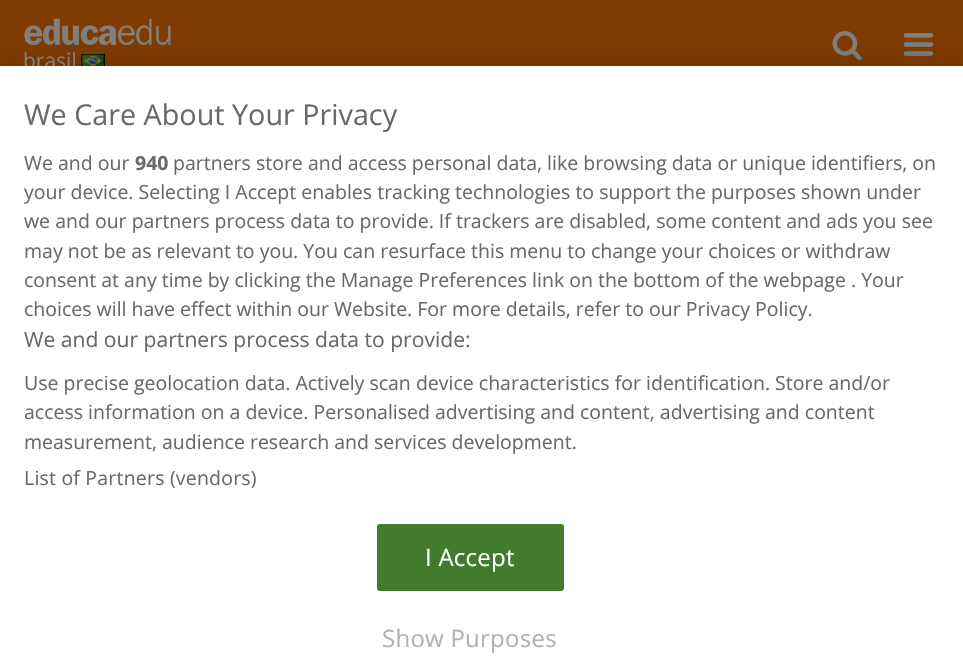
void draw(SkCanvas* canvas) {
  SkPaint paint;
  paint.setAntiAlias(true);
  auto face = [&](const char* family, int weight, float size, bool italic = false) {
    SkFontStyle style(weight, SkFontStyle::kNormal_Width,
      italic ? SkFontStyle::kItalic_Slant : SkFontStyle::kUpright_Slant);
    SkFont result(fontMgr->matchFamilyStyle(family, style), size);
    result.setSubpixel(true);
    return result;
  };
  auto writeSpaced = [&](const char* s, float x, float y, const SkFont& font, const SkPaint& ink, float letter, float word) {
    std::vector<SkGlyphID> glyphs(font.countText(s, strlen(s), SkTextEncoding::kUTF8));
    std::vector<float> xs(glyphs.size());
    font.textToGlyphs(s, strlen(s), SkTextEncoding::kUTF8, glyphs);
    font.getXPos(glyphs, xs, x);
    float extra = 0;
    for (size_t i = 0; i < glyphs.size(); i++) {
      xs[i] += extra;
      extra += letter + word * (glyphs[i] == font.unicharToGlyph(' '));
    }
    canvas->drawTextBlob(SkTextBlob::MakeFromPosHGlyphs(glyphs, xs, y, font), 0, 0, ink);
  };
  auto paste = [&](const char* path, float x, float y, float w, float h) {
    auto image = SkImages::DeferredFromEncodedData(SkData::MakeFromFileName(path));
    canvas->drawImageRect(image, SkRect::MakeXYWH(x, y, w, h), SkSamplingOptions());
  };
  canvas->clear(0xff803b00);
  paste("img/1.png", 832, 31, 30, 30);
  paste("img/2.png", 903, 33, 31, 23);
  paste("img/3.png", 24, 18, 147, 27);
  paste("img/4.png", 81, 54, 24, 12);
  paint.setColor(0x33000000);
  paint.setMaskFilter(SkMaskFilter::MakeBlur(kNormal_SkBlurStyle, 13.5f));
  canvas->drawRect(SkRect::MakeXYWH(0, 66, 963, 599), paint);
  paint.setMaskFilter(nullptr);
  auto f0 = face("Open Sans", 400, 21);
  paint.setColor(0xff808080);
  canvas->drawString("brasil", 23, 68, f0, paint);
  paint.setColor(0xffffffff);
  canvas->drawRect(SkRect::MakeXYWH(0, 66, 963, 598), paint);
  auto f1 = face("Open Sans", 400, 28.75f);
  paint.setColor(0xff696969);
  canvas->drawString("We Care About Your Privacy", 24, 125, f1, paint);
  auto f2 = face("Open Sans", 400, 19.5f);
  canvas->drawString("We and our", 24, 170, f2, paint);
  auto f3 = face("Open Sans", 700, 19.5f);
  canvas->drawString("940", 135, 170, f3, paint);
  {
    const struct { const char* s; float x, y; } items[] = {
      {"partners store and access personal data, like browsing data or unique identifiers, on", 173, 170},
      {"your device. Selecting I Accept enables tracking technologies to support the purposes shown under", 24, 199},
      {"we and our partners process data to provide. If trackers are disabled, some content and ads you see", 24, 228},
      {"may not be as relevant to you. You can resurface this menu to change your choices or withdraw", 24, 258},
      {"consent at any time by clicking the Manage Preferences link on the bottom of the webpage . Your", 24, 287},
      {"choices will have effect within our Website. For more details, refer to our Privacy Policy.", 24, 316},
    };
    for (auto [s, x, y] : items) {
      canvas->drawString(s, x, y, f2, paint);
    }
  }
  auto f4 = face("Open Sans", 400, 21.1f);
  canvas->drawString("We and our partners process data to provide:", 24, 347, f4, paint);
  {
    const struct { const char* s; float x, y; } items[] = {
      {"Use precise geolocation data. Actively scan device characteristics for identification. Store and/or", 24, 390},
      {"access information on a device. Personalised advertising and content, advertising and content", 24, 419},
      {"measurement, audience research and services development.", 24, 449},
    };
    for (auto [s, x, y] : items) {
      canvas->drawString(s, x, y, f2, paint);
    }
  }
  writeSpaced("List of Partners (vendors)", 24, 485, f2, paint, 0.2f, 0);
  paint.setColor(0xff437b2d);
  canvas->drawRoundRect(SkRect::MakeXYWH(378, 525, 185, 65), 2, 2, paint);
  paint.setStroke(true);
  paint.setStrokeWidth(2);
  canvas->drawRoundRect(SkRect::MakeXYWH(378, 525, 185, 65), 2, 2, paint);
  auto f5 = face("Open Sans", 400, 24);
  paint.setStroke(false);
  paint.setColor(0xffffffff);
  writeSpaced("I Accept", 425, 566, f5, paint, 0.25f, 0);
  paint.setColor(0xffb3b1b1);
  writeSpaced("Show Purposes", 382, 647, f5, paint, 0.25f, 0);
}
